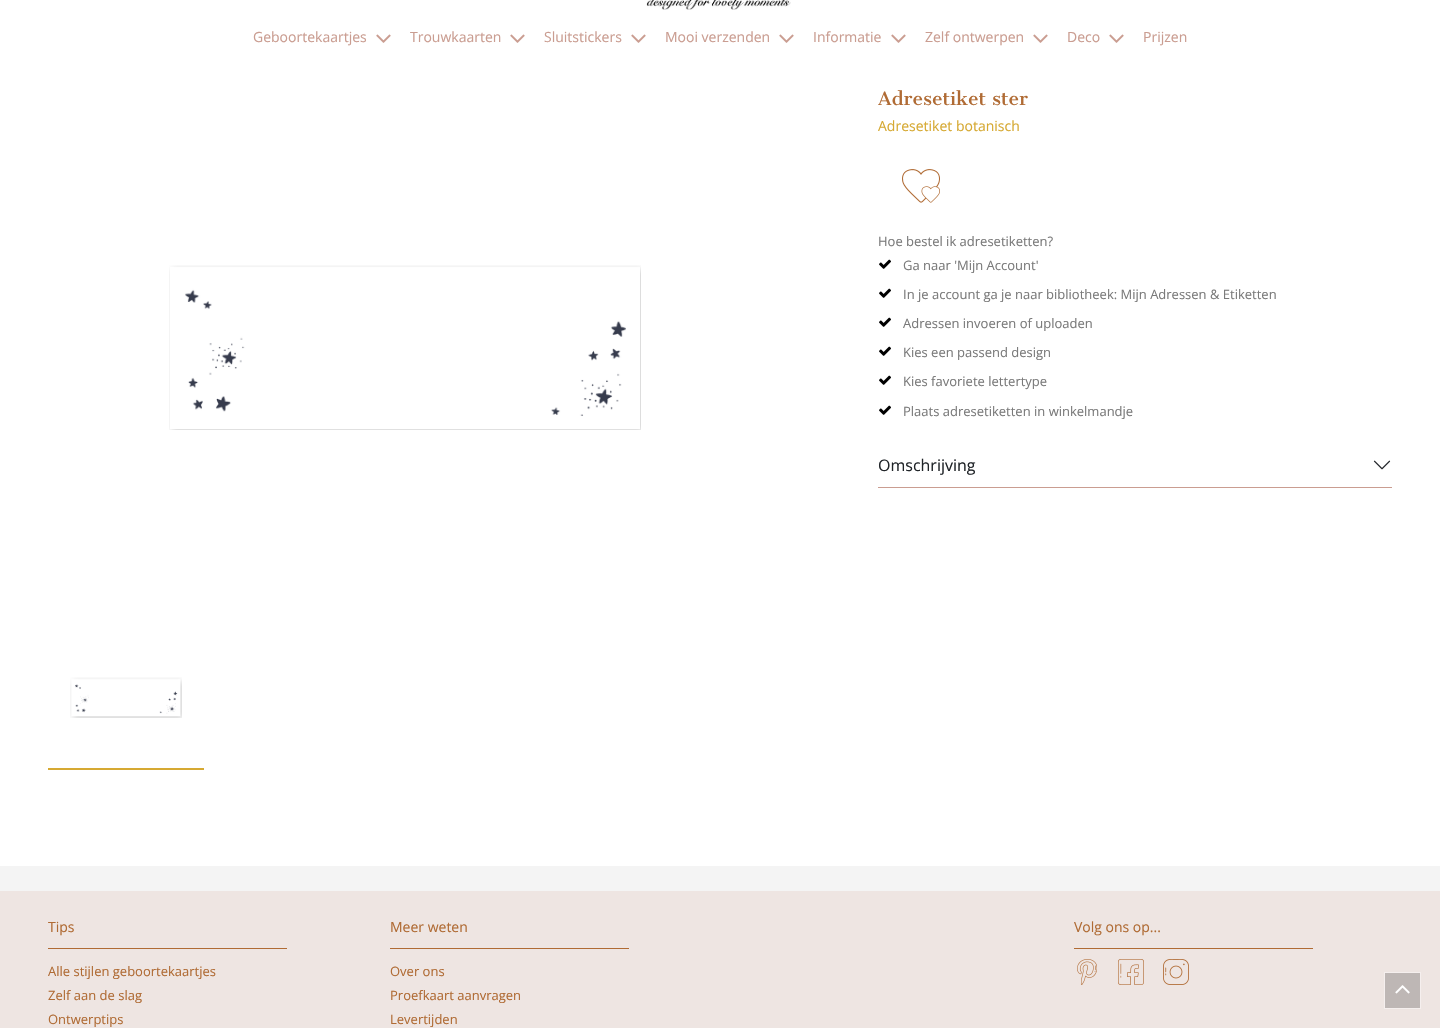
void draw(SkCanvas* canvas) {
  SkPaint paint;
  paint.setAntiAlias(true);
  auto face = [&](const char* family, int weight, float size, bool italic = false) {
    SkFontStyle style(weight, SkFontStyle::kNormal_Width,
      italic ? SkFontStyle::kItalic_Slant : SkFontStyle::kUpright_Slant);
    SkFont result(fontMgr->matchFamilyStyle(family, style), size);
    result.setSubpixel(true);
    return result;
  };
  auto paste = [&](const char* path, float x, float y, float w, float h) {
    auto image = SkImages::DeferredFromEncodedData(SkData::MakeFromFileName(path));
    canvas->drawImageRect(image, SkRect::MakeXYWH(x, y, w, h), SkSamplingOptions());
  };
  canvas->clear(0xffffffff);
  paste("img/1.png", 646, 0, 145, 10);
  paste("img/2.png", 376, 34, 15, 9);
  paste("img/2.png", 510, 34, 15, 9);
  paste("img/2.png", 631, 34, 15, 9);
  paste("img/2.png", 779, 34, 15, 9);
  paste("img/2.png", 891, 34, 15, 9);
  paste("img/2.png", 1033, 34, 15, 9);
  paste("img/2.png", 1109, 34, 15, 9);
  paste("img/3.png", 902, 169, 38, 34);
  paste("img/4.png", 169, 265, 472, 165);
  paint.setColor(0xffd6a932);
  canvas->drawRect(SkRect::MakeXYWH(48, 768, 156, 2), paint);
  paste("img/5.png", 70, 677, 112, 41);
  paste("img/6.png", 879, 259, 12, 10);
  paste("img/6.png", 879, 288, 12, 10);
  paste("img/6.png", 879, 317, 12, 10);
  paste("img/6.png", 879, 346, 12, 10);
  paste("img/6.png", 879, 375, 12, 10);
  paste("img/6.png", 879, 405, 12, 10);
  paint.setColor(0xffca9d91);
  canvas->drawRect(SkRect::MakeXYWH(878, 487, 514, 1), paint);
  paste("img/7.png", 1373, 460, 18, 10);
  {
    const struct { float x, y, w, h; SkColor color; } items[] = {
      {0, 866, 1440, 25, 0xfff4f4f4},
      {0, 891, 1440, 137, 0xffeee5e2},
      {48, 948, 239, 1, 0xffb06b34},
      {390, 948, 239, 1, 0xffb06b34},
      {1074, 948, 239, 1, 0xffb06b34},
    };
    for (auto [x, y, w, h, color] : items) {
      paint.setColor(color);
      canvas->drawRect(SkRect::MakeXYWH(x, y, w, h), paint);
    }
  }
  paste("img/8.png", 1077, 959, 20, 26);
  paste("img/9.png", 1118, 959, 26, 26);
  paste("img/10.png", 1163, 959, 26, 26);
  paint.setStroke(true);
  paint.setStrokeWidth(1);
  paint.setColor(0xfff5efee);
  canvas->drawRect(SkRect::MakeXYWH(1384.5f, 972.5f, 36, 36), paint);
  paint.setStroke(false);
  paint.setColor(0xffbeb7b5);
  canvas->drawRect(SkRect::MakeXYWH(1385, 973, 35, 35), paint);
  paste("img/11.png", 1395, 985, 15, 9);
  auto f0 = face("Open Sans", 400, 14);
  paint.setColor(0xffca9d91);
  {
    const struct { const char* s; float x, y; } items[] = {
      {"Geboortekaartjes", 253, 42},
      {"Trouwkaarten", 410, 42},
      {"Sluitstickers", 544, 42},
      {"Mooi verzenden", 665, 42},
      {"Informatie", 813, 42},
      {"Zelf ontwerpen", 925, 42},
      {"Deco", 1067, 42},
      {"Prijzen", 1143, 42},
    };
    for (auto [s, x, y] : items) {
      canvas->drawString(s, x, y, f0, paint);
    }
  }
  auto f1 = face("Cantata One", 400, 18);
  paint.setColor(0xffb06b34);
  canvas->drawString("Adresetiket ster", 878, 105, f1, paint);
  paint.setColor(0xffd6a932);
  canvas->drawString("Adresetiket botanisch", 878, 131, f0, paint);
  auto f2 = face("Open Sans", 400, 13);
  paint.setColor(0xff7a7a7a);
  {
    const struct { const char* s; float x, y; } items[] = {
      {"Hoe bestel ik adresetiketten?", 878, 246},
      {"Ga naar 'Mijn Account'", 903, 270},
      {"In je account ga je naar bibliotheek: Mijn Adressen & Etiketten", 903, 299},
      {"Adressen invoeren of uploaden", 903, 328},
      {"Kies een passend design", 903, 357},
      {"Kies favoriete lettertype", 903, 386},
      {"Plaats adresetiketten in winkelmandje", 903, 416},
    };
    for (auto [s, x, y] : items) {
      canvas->drawString(s, x, y, f2, paint);
    }
  }
  auto f3 = face("Open Sans", 400, 16);
  paint.setColor(0xff212529);
  canvas->drawString("Omschrijving", 878, 471, f3, paint);
  paint.setColor(0xffb06b34);
  canvas->drawString("Tips", 48, 932, f0, paint);
  {
    const struct { const char* s; float x, y; } items[] = {
      {"Alle stijlen geboortekaartjes", 48, 976},
      {"Zelf aan de slag", 48, 1000},
      {"Ontwerptips", 48, 1024},
    };
    for (auto [s, x, y] : items) {
      canvas->drawString(s, x, y, f2, paint);
    }
  }
  canvas->drawString("Meer weten", 390, 932, f0, paint);
  {
    const struct { const char* s; float x, y; } items[] = {
      {"Over ons", 390, 976},
      {"Proefkaart aanvragen", 390, 1000},
      {"Levertijden", 390, 1024},
    };
    for (auto [s, x, y] : items) {
      canvas->drawString(s, x, y, f2, paint);
    }
  }
  canvas->drawString("Volg ons op...", 1074, 932, f0, paint);
}
